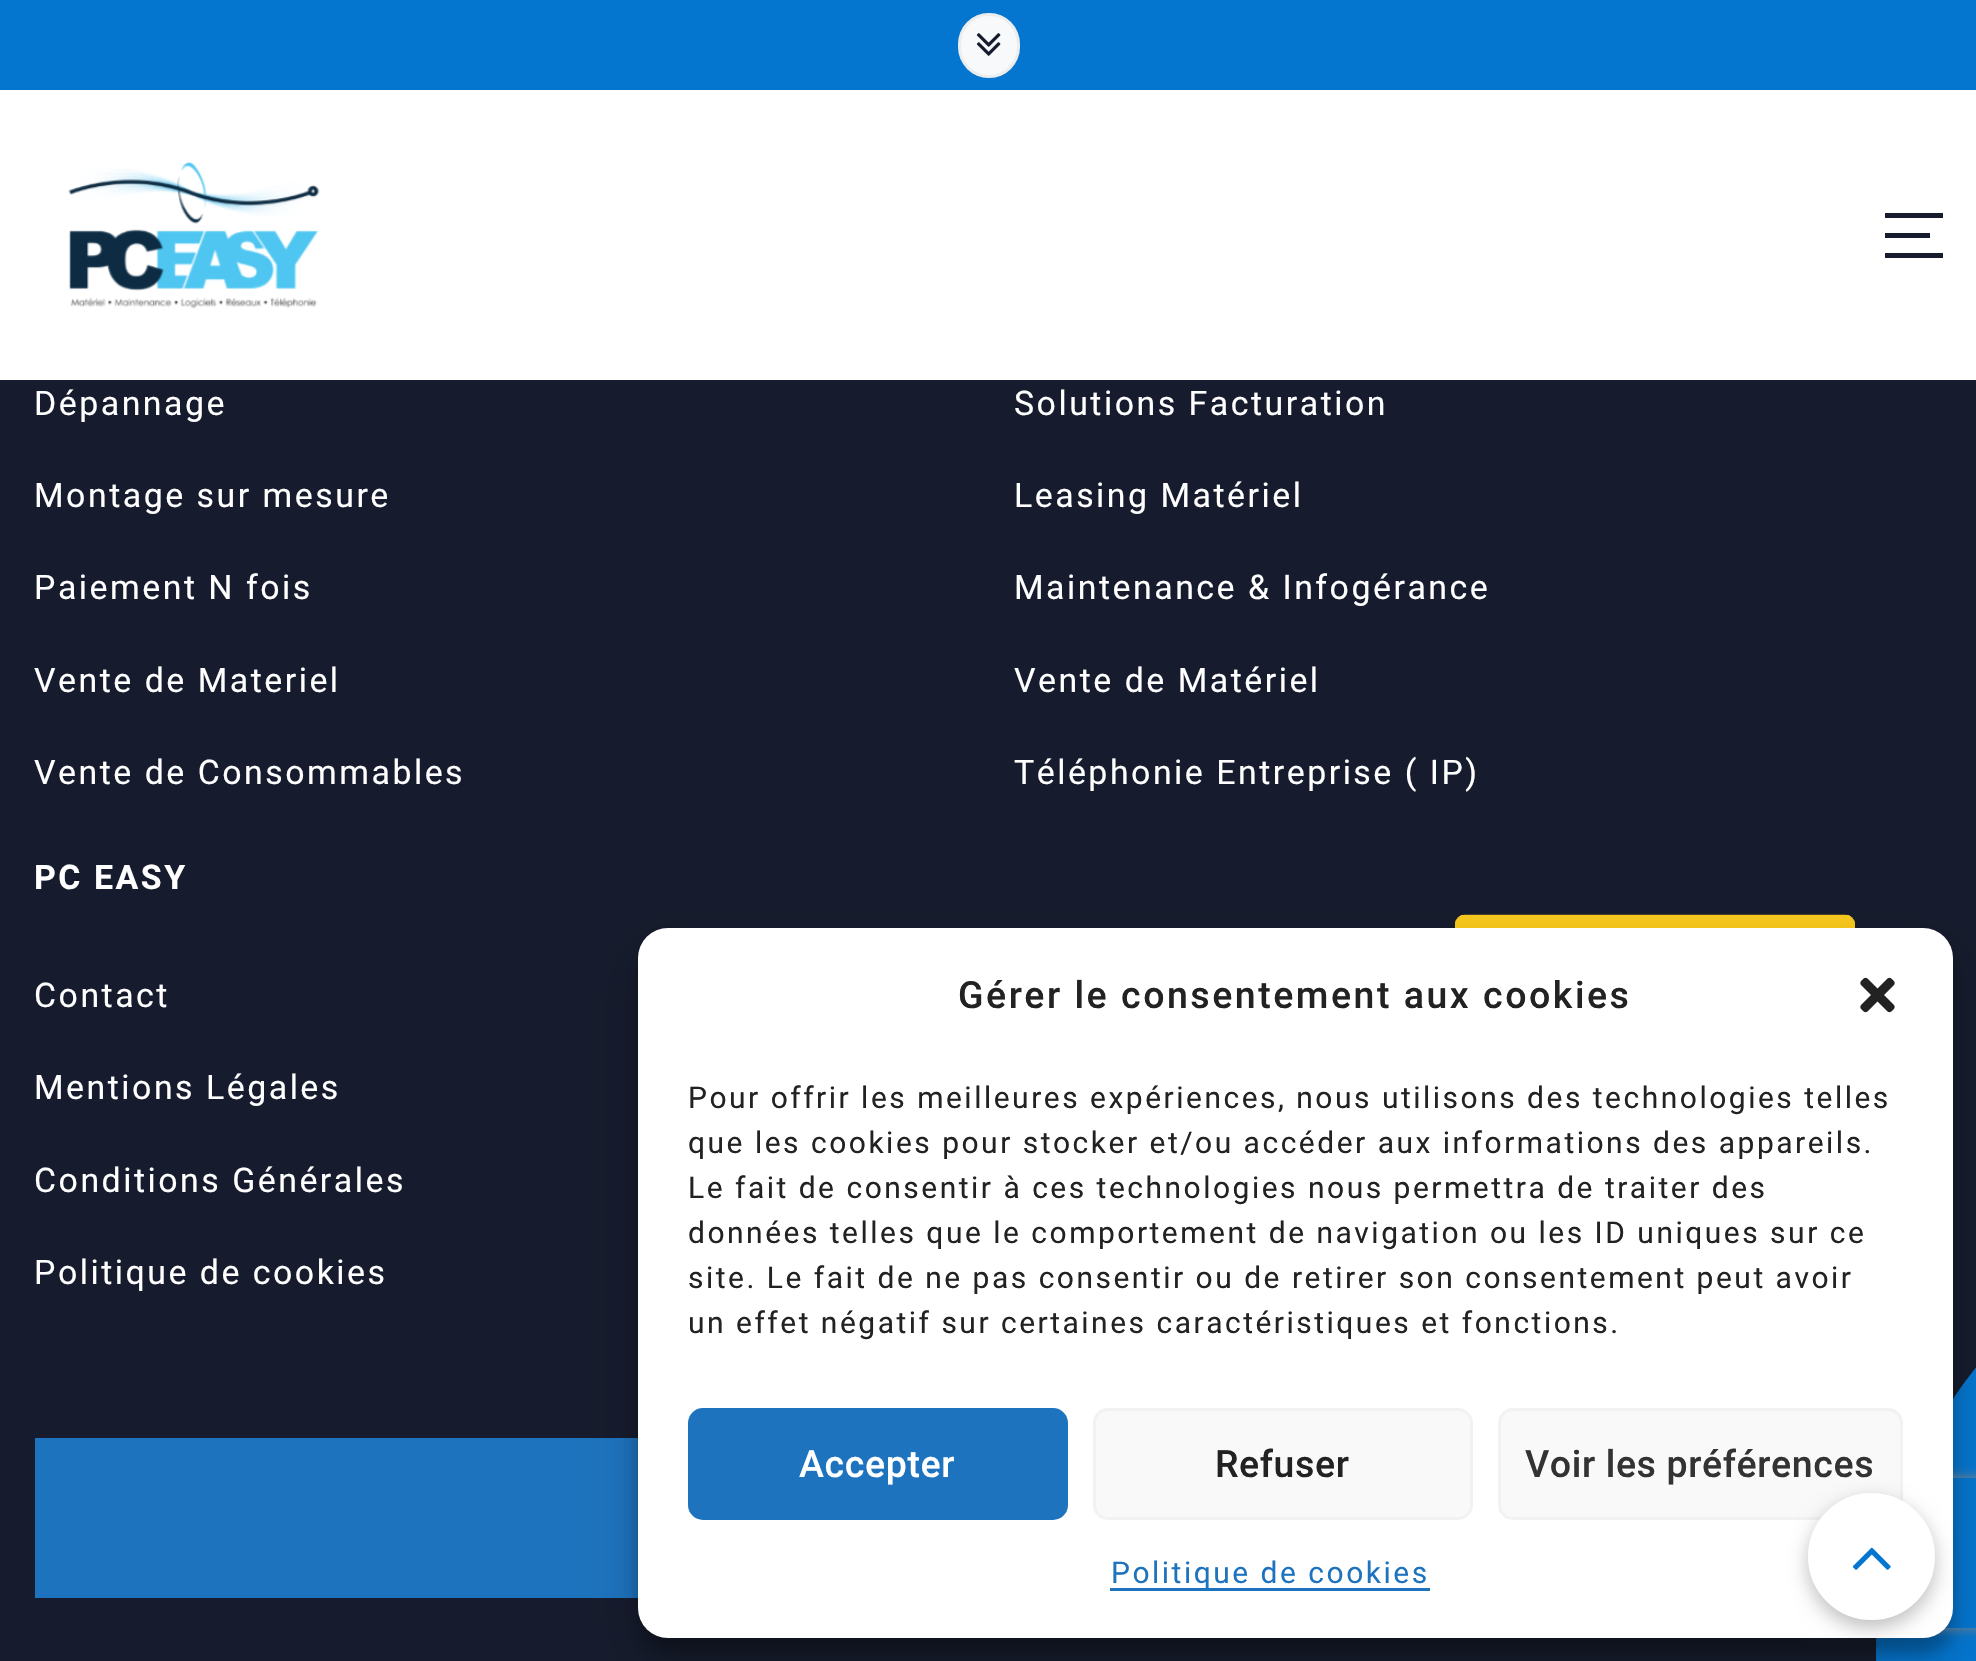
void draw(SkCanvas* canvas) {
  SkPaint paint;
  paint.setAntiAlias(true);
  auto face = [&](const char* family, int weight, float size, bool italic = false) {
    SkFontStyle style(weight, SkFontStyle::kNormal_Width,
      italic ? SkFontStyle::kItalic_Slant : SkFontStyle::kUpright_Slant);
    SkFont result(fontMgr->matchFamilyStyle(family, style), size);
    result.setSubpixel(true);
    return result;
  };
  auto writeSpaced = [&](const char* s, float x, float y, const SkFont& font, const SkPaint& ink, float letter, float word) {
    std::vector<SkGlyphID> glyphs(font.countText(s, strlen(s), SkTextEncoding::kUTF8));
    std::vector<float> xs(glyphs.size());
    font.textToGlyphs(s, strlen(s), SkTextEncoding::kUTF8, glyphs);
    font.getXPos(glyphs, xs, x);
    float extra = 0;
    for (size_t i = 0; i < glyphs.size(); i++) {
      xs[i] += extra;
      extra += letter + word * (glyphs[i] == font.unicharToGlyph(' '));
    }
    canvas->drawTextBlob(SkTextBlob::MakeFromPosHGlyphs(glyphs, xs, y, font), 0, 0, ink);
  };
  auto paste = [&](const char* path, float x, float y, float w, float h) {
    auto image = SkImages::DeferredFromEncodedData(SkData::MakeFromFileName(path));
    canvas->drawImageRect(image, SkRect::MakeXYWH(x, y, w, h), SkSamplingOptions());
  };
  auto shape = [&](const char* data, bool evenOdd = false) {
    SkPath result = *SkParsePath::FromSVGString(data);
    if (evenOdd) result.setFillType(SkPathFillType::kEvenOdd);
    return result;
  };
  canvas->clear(0xff161c2d);
  paint.setColor(0xffffffff);
  canvas->drawRect(SkRect::MakeXYWH(0, 90, 1976, 290), paint);
  paint.setColor(0xff0476d0);
  canvas->drawRect(SkRect::MakeXYWH(0, 0, 1976, 90), paint);
  paint.setColor(0xfff8f9fa);
  canvas->drawRoundRect(SkRect::MakeXYWH(958, 13, 62, 65), 31, 31, paint);
  paint.setStroke(true);
  paint.setStrokeWidth(3);
  paint.setColor(0x33bdbdbd);
  canvas->drawRoundRect(SkRect::MakeXYWH(959.5f, 14.5f, 59, 62), 29.5f, 29.5f, paint);
  paste("img/1.png", 976, 33, 25, 23);
  paste("img/2.png", 68, 162, 252, 147);
  paint.setStroke(false);
  {
    const struct { float x, y, w, h; SkColor color; } items[] = {
      {1885, 213, 58, 5, 0xff161c2d},
      {1885, 233, 45, 5, 0xff161c2d},
      {1885, 253, 58, 5, 0xff161c2d},
    };
    for (auto [x, y, w, h, color] : items) {
      paint.setColor(color);
      canvas->drawRect(SkRect::MakeXYWH(x, y, w, h), paint);
    }
  }
  paste("img/3.png", 1455, 914, 400, 14);
  paint.setColor(0xff1e73be);
  canvas->drawRect(SkRect::MakeXYWH(35, 1438, 603, 160), paint);
  paste("img/4.png", 1876, 1367, 100, 294);
  paint.setColor(0x3b000000);
  paint.setMaskFilter(SkMaskFilter::MakeBlur(kNormal_SkBlurStyle, 7.5f));
  canvas->drawRoundRect(SkRect::MakeXYWH(638, 943, 1315, 710), 30, 30, paint);
  paint.setMaskFilter(nullptr);
  paint.setColor(0x30000000);
  paint.setMaskFilter(SkMaskFilter::MakeBlur(kNormal_SkBlurStyle, 25));
  canvas->drawRoundRect(SkRect::MakeXYWH(638, 953, 1315, 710), 30, 30, paint);
  paint.setMaskFilter(nullptr);
  canvas->save();
  canvas->clipPath(shape("M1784 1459H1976V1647H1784ZM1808 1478H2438C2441 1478 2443 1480 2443 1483V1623C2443 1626 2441 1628 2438 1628H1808C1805 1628 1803 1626 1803 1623V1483C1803 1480 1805 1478 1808 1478Z", true), true);
  paint.setColor(0xff808080);
  paint.setMaskFilter(SkMaskFilter::MakeBlur(kNormal_SkBlurStyle, 6));
  canvas->drawRoundRect(SkRect::MakeXYWH(1803, 1478, 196, 150), 5, 5, paint);
  paint.setMaskFilter(nullptr);
  canvas->restore();
  paint.setColor(0xffffffff);
  canvas->drawRoundRect(SkRect::MakeXYWH(638, 928, 1315, 710), 30, 30, paint);
  paste("img/5.png", 1860, 977, 35, 36);
  paint.setColor(0xff1e73be);
  canvas->drawRoundRect(SkRect::MakeXYWH(689.5f, 1409.5f, 377, 109), 13.5f, 13.5f, paint);
  paint.setStroke(true);
  canvas->drawRoundRect(SkRect::MakeXYWH(689.5f, 1409.5f, 377, 109), 13.5f, 13.5f, paint);
  paint.setStroke(false);
  paint.setColor(0xfff9f9f9);
  canvas->drawRoundRect(SkRect::MakeXYWH(1094.5f, 1409.5f, 377, 109), 13.5f, 13.5f, paint);
  paint.setStroke(true);
  paint.setColor(0xfff2f2f2);
  canvas->drawRoundRect(SkRect::MakeXYWH(1094.5f, 1409.5f, 377, 109), 13.5f, 13.5f, paint);
  paint.setStroke(false);
  paint.setColor(0xfff9f9f9);
  canvas->drawRoundRect(SkRect::MakeXYWH(1499.5f, 1409.5f, 402, 109), 13.5f, 13.5f, paint);
  paint.setStroke(true);
  paint.setColor(0xfff2f2f2);
  canvas->drawRoundRect(SkRect::MakeXYWH(1499.5f, 1409.5f, 402, 109), 13.5f, 13.5f, paint);
  paint.setStroke(false);
  paint.setColor(0xff1e73be);
  canvas->drawRect(SkRect::MakeXYWH(1110, 1588, 320, 3), paint);
  paint.setColor(0x40000000);
  paint.setMaskFilter(SkMaskFilter::MakeBlur(kNormal_SkBlurStyle, 9.5f));
  canvas->drawRoundRect(SkRect::MakeXYWH(1808, 1500, 127, 128), 63.5f, 63.5f, paint);
  paint.setMaskFilter(nullptr);
  paint.setColor(0xffffffff);
  canvas->drawCircle(1871.5f, 1556.5f, 62, paint);
  paint.setStroke(true);
  canvas->drawCircle(1871.5f, 1556.5f, 62, paint);
  paste("img/6.png", 1852, 1547, 39, 23);
  auto f0 = face("Roboto", 400, 33.9f);
  paint.setStroke(false);
  {
    const struct { const char* s; float x, y; } items[] = {
      {"Dépannage", 34, 415},
      {"Montage sur mesure", 34, 507},
      {"Paiement N fois", 34, 599},
      {"Vente de Materiel", 34, 692},
      {"Vente de Consommables", 34, 784},
      {"Solutions Facturation", 1014, 415},
      {"Leasing Matériel", 1014, 507},
      {"Maintenance & Infogérance", 1014, 599},
      {"Vente de Matériel", 1014, 692},
      {"Téléphonie Entreprise ( IP)", 1014, 784},
    };
    for (auto [s, x, y] : items) {
      writeSpaced(s, x, y, f0, paint, 2.5f, 0);
    }
  }
  auto f1 = face("Roboto", 700, 33.9f);
  writeSpaced("PC EASY", 34, 889, f1, paint, 2.5f, 0);
  {
    const struct { const char* s; float x, y; } items[] = {
      {"Contact", 34, 1007},
      {"Mentions Légales", 34, 1099},
      {"Conditions Générales", 34, 1192},
      {"Politique de cookies", 34, 1284},
    };
    for (auto [s, x, y] : items) {
      writeSpaced(s, x, y, f0, paint, 2.5f, 0);
    }
  }
  auto f2 = face("Roboto", 500, 37.5f);
  paint.setColor(0xff222222);
  writeSpaced("Gérer le consentement aux cookies", 958, 1008, f2, paint, 2.5f, 0);
  auto f3 = face("Roboto", 400, 30);
  {
    const struct { const char* s; float x, y; } items[] = {
      {"Pour offrir les meilleures expériences, nous utilisons des technologies telles", 688, 1108},
      {"que les cookies pour stocker et/ou accéder aux informations des appareils.", 688, 1153},
      {"Le fait de consentir à ces technologies nous permettra de traiter des", 688, 1198},
      {"données telles que le comportement de navigation ou les ID uniques sur ce", 688, 1243},
      {"site. Le fait de ne pas consentir ou de retirer son consentement peut avoir", 688, 1288},
      {"un effet négatif sur certaines caractéristiques et fonctions.", 688, 1333},
    };
    for (auto [s, x, y] : items) {
      writeSpaced(s, x, y, f3, paint, 2.5f, 0);
    }
  }
  paint.setColor(0xffffffff);
  writeSpaced("Accepter", 799, 1477, f2, paint, 0.6f, 0);
  paint.setColor(0xff222222);
  writeSpaced("Refuser", 1215, 1477, f2, paint, 0.6f, 0);
  paint.setColor(0xff333333);
  writeSpaced("Voir les préférences", 1525, 1477, f2, paint, 0.6f, 0);
  paint.setColor(0xff1e73be);
  writeSpaced("Politique de cookies", 1111, 1583, f3, paint, 2.5f, 0);
}
